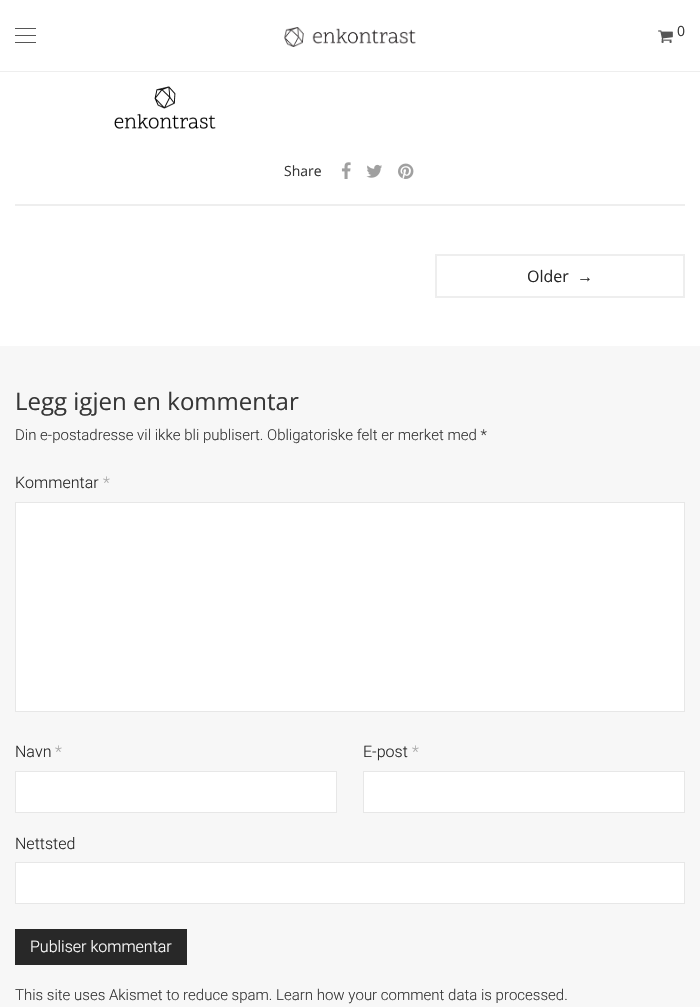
void draw(SkCanvas* canvas) {
  SkPaint paint;
  paint.setAntiAlias(true);
  auto face = [&](const char* family, int weight, float size, bool italic = false) {
    SkFontStyle style(weight, SkFontStyle::kNormal_Width,
      italic ? SkFontStyle::kItalic_Slant : SkFontStyle::kUpright_Slant);
    SkFont result(fontMgr->matchFamilyStyle(family, style), size);
    result.setSubpixel(true);
    return result;
  };
  auto paste = [&](const char* path, float x, float y, float w, float h) {
    auto image = SkImages::DeferredFromEncodedData(SkData::MakeFromFileName(path));
    canvas->drawImageRect(image, SkRect::MakeXYWH(x, y, w, h), SkSamplingOptions());
  };
  canvas->clear(0xffffffff);
  {
    const struct { float x, y, w, h; SkColor color; } items[] = {
      {0, 71, 700, 1, 0xffeeeeee},
      {15, 28, 21, 1, 0xff565656},
      {15, 35, 21, 1, 0xff565656},
      {15, 42, 21, 1, 0xff565656},
    };
    for (auto [x, y, w, h, color] : items) {
      paint.setColor(color);
      canvas->drawRect(SkRect::MakeXYWH(x, y, w, h), paint);
    }
  }
  paste("img/1.png", 284, 27, 132, 20);
  paste("img/2.png", 658, 30, 15, 13);
  paste("img/3.png", 114, 86, 102, 43);
  paint.setColor(0xffeeeeee);
  canvas->drawRect(SkRect::MakeXYWH(15, 204, 670, 2), paint);
  paste("img/4.png", 341, 162, 10, 17);
  paste("img/5.png", 366, 164, 16, 14);
  paste("img/6.png", 398, 163, 16, 16);
  paint.setStroke(true);
  paint.setStrokeWidth(2);
  canvas->drawRect(SkRect::MakeXYWH(436, 255, 248, 42), paint);
  paint.setStroke(false);
  paint.setColor(0xfff7f7f7);
  canvas->drawRect(SkRect::MakeXYWH(0, 346, 700, 661), paint);
  paint.setColor(0xffffffff);
  canvas->drawRect(SkRect::MakeXYWH(15.5f, 502.5f, 669, 209), paint);
  paint.setStroke(true);
  paint.setStrokeWidth(1);
  paint.setColor(0xffe7e7e7);
  canvas->drawRect(SkRect::MakeXYWH(15.5f, 502.5f, 669, 209), paint);
  paint.setStroke(false);
  paint.setColor(0xffffffff);
  canvas->drawRect(SkRect::MakeXYWH(15.5f, 771.5f, 321, 41), paint);
  paint.setStroke(true);
  paint.setColor(0xffe7e7e7);
  canvas->drawRect(SkRect::MakeXYWH(15.5f, 771.5f, 321, 41), paint);
  paint.setStroke(false);
  paint.setColor(0xffffffff);
  canvas->drawRect(SkRect::MakeXYWH(363.5f, 771.5f, 321, 41), paint);
  paint.setStroke(true);
  paint.setColor(0xffe7e7e7);
  canvas->drawRect(SkRect::MakeXYWH(363.5f, 771.5f, 321, 41), paint);
  paint.setStroke(false);
  paint.setColor(0xffffffff);
  canvas->drawRect(SkRect::MakeXYWH(15.5f, 862.5f, 669, 41), paint);
  paint.setStroke(true);
  paint.setColor(0xffe7e7e7);
  canvas->drawRect(SkRect::MakeXYWH(15.5f, 862.5f, 669, 41), paint);
  paint.setStroke(false);
  paint.setColor(0xff282828);
  canvas->drawRect(SkRect::MakeXYWH(15, 929, 172, 36), paint);
  auto f0 = face("Open Sans", 400, 14);
  paint.setColor(0xff373737);
  canvas->drawString("0", 677, 36, f0, paint);
  canvas->drawString("Share", 284, 176, f0, paint);
  auto f1 = face("Open Sans", 400, 16);
  paint.setColor(0xff282828);
  canvas->drawString("Older", 527, 282, f1, paint);
  auto f2 = face("Liberation Sans", 400, 16);
  canvas->drawString("→", 577, 282, f2, paint);
  auto f3 = face("Open Sans", 400, 24);
  paint.setColor(0xff373737);
  canvas->drawString("Legg igjen en kommentar", 15, 410, f3, paint);
  auto f4 = face("Roboto", 300, 15);
  canvas->drawString("Din e-postadresse vil ikke bli publisert. Obligatoriske felt er merket med *", 15, 440, f4, paint);
  auto f5 = face("Roboto", 300, 16);
  paint.setColor(0xff282828);
  canvas->drawString("Kommentar", 15, 488, f5, paint);
  paint.setColor(0xffaaaaaa);
  canvas->drawString("*", 103, 488, f5, paint);
  paint.setColor(0xff282828);
  canvas->drawString("Navn", 15, 757, f5, paint);
  paint.setColor(0xffaaaaaa);
  canvas->drawString("*", 55, 757, f5, paint);
  paint.setColor(0xff282828);
  canvas->drawString("E-post", 363, 757, f5, paint);
  paint.setColor(0xffaaaaaa);
  canvas->drawString("*", 412, 757, f5, paint);
  paint.setColor(0xff282828);
  canvas->drawString("Nettsted", 15, 849, f5, paint);
  paint.setColor(0xffffffff);
  canvas->drawString("Publiser kommentar", 30, 952, f5, paint);
  paint.setColor(0xff373737);
  canvas->drawString("This site uses Akismet to reduce spam. Learn how your comment data is processed.", 15, 1000, f4, paint);
}
